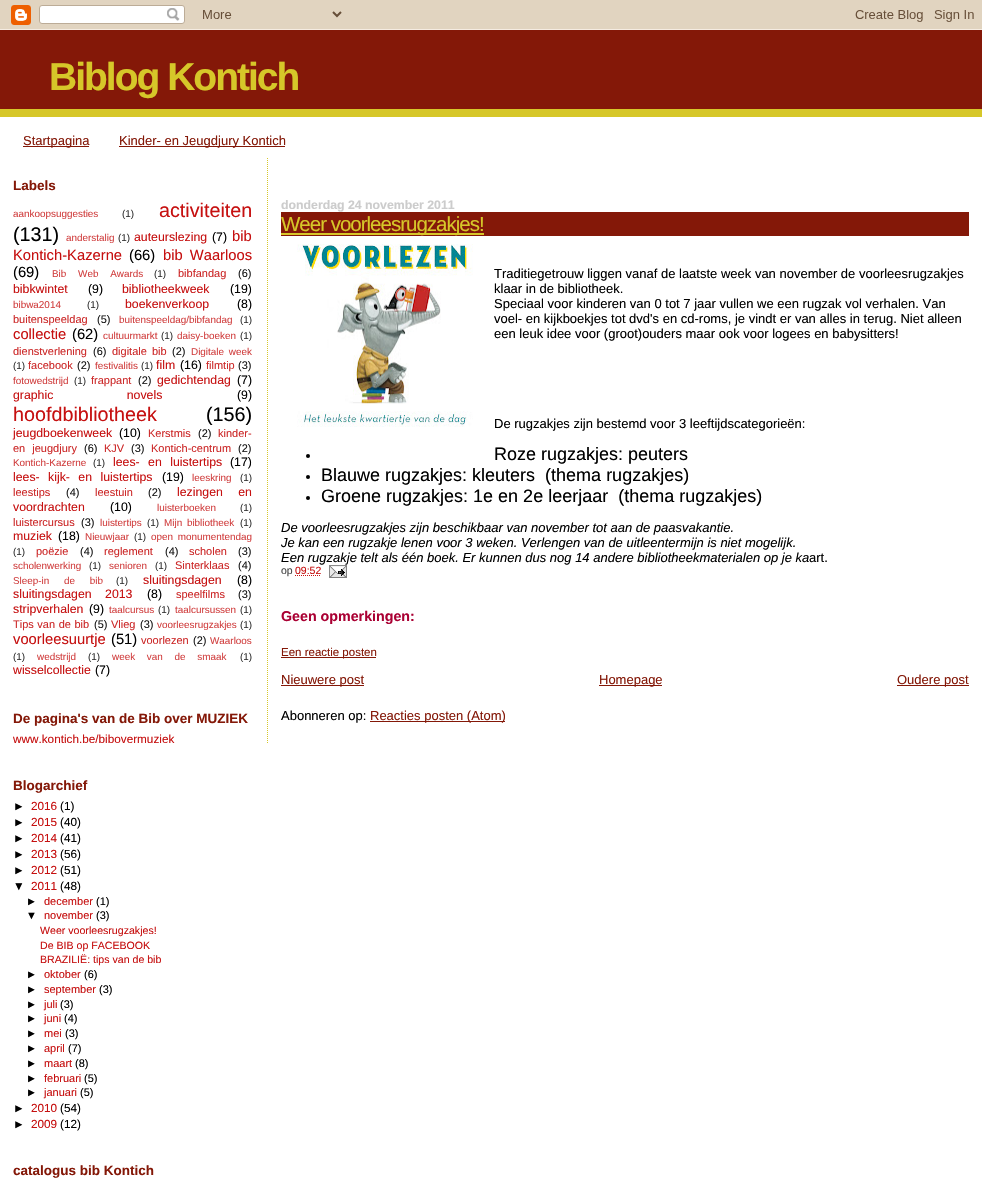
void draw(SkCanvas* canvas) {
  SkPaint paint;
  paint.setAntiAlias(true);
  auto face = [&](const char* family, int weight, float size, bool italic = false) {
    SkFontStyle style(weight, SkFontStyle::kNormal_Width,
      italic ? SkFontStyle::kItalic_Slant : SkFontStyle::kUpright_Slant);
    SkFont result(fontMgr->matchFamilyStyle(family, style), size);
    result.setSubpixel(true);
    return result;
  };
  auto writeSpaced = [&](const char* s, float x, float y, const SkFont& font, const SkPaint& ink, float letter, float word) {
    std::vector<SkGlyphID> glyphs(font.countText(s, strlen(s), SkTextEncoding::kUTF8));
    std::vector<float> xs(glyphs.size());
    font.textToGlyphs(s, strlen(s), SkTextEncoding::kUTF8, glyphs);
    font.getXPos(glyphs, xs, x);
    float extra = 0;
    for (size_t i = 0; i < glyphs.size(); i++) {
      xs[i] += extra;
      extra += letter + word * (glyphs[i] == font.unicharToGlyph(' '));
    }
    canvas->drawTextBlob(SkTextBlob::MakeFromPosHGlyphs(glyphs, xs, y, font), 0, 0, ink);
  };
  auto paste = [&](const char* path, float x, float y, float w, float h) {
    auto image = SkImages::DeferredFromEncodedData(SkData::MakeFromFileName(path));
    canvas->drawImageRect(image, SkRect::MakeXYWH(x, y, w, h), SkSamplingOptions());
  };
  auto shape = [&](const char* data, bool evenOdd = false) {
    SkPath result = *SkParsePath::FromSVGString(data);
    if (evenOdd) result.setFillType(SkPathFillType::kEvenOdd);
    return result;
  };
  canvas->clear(0xffffffff);
  paste("img/1.png", 0, 0, 982, 30);
  {
    const struct { float x, y, w, h; SkColor color; } items[] = {
      {0, 109, 982, 8, 0xffd6c729},
      {0, 30, 982, 79, 0xff841808},
      {23, 146, 66, 1, 0xff841808},
      {119, 146, 166, 1, 0xff841808},
    };
    for (auto [x, y, w, h, color] : items) {
      paint.setColor(color);
      canvas->drawRect(SkRect::MakeXYWH(x, y, w, h), paint);
    }
  }
  paint.setStroke(true);
  paint.setStrokeWidth(1);
  paint.setColor(0xffd6c729);
  paint.setPathEffect(SkDashPathEffect::Make({{1, 1}}, 0));
  canvas->drawPath(shape("M267.5 158V743"), paint);
  paint.setPathEffect(nullptr);
  paint.setStroke(false);
  paint.setColor(0xff841808);
  canvas->drawRect(SkRect::MakeXYWH(281, 212, 688, 24), paint);
  paint.setColor(0xffd6c729);
  canvas->drawRect(SkRect::MakeXYWH(281, 233, 203, 2), paint);
  paste("img/2.png", 297, 244, 176, 183);
  paint.setColor(0xff000000);
  canvas->drawCircle(308, 456, 2, paint);
  canvas->drawCircle(308, 477, 2, paint);
  canvas->drawCircle(308, 498, 2, paint);
  paint.setStroke(true);
  paint.setColor(0xffc61010);
  paint.setPathEffect(SkDashPathEffect::Make({{1, 1}}, 0));
  canvas->drawPath(shape("M295 575.5H321"), paint);
  paint.setPathEffect(nullptr);
  paste("img/3.png", 329, 565, 18, 13);
  paint.setStroke(false);
  {
    const struct { float x, y, w, h; SkColor color; } items[] = {
      {281, 657, 95, 1, 0xff841808},
      {281, 685, 83, 1, 0xff841808},
      {599, 685, 63, 1, 0xff841808},
      {897, 685, 72, 1, 0xff841808},
      {370, 721, 135, 1, 0xff841808},
    };
    for (auto [x, y, w, h, color] : items) {
      paint.setColor(color);
      canvas->drawRect(SkRect::MakeXYWH(x, y, w, h), paint);
    }
  }
  auto f0 = face("Liberation Sans", 700, 39);
  paint.setColor(0xffd6c729);
  writeSpaced("Biblog Kontich", 49, 90, f0, paint, -2, 0);
  auto f1 = face("Liberation Sans", 400, 13);
  paint.setColor(0xff841808);
  canvas->drawString("Startpagina", 23, 145, f1, paint);
  canvas->drawString("Kinder- en Jeugdjury Kontich", 119, 145, f1, paint);
  auto f2 = face("Liberation Sans", 700, 13.5f);
  canvas->drawString("Labels", 13, 190, f2, paint);
  auto f3 = face("Liberation Sans", 400, 9.9f);
  paint.setColor(0xffd14040);
  canvas->drawString("aankoopsuggesties", 13, 217, f3, paint);
  paint.setColor(0xff333333);
  canvas->drawString("(1)", 122, 217, f3, paint);
  auto f4 = face("Liberation Sans", 400, 19.75f);
  paint.setColor(0xffc61010);
  canvas->drawString("activiteiten", 159, 217, f4, paint);
  paint.setColor(0xff000000);
  canvas->drawString("(131)", 13, 241, f4, paint);
  paint.setColor(0xffd14040);
  canvas->drawString("anderstalig", 66, 241, f3, paint);
  paint.setColor(0xff333333);
  canvas->drawString("(1)", 118, 241, f3, paint);
  auto f5 = face("Liberation Sans", 400, 12.3f);
  paint.setColor(0xffc61010);
  canvas->drawString("auteurslezing", 134, 241, f5, paint);
  paint.setColor(0xff000000);
  canvas->drawString("(7)", 212, 241, f5, paint);
  auto f6 = face("Liberation Sans", 400, 14.75f);
  paint.setColor(0xffc61010);
  canvas->drawString("bib", 232, 241, f6, paint);
  canvas->drawString("Kontich-Kazerne", 13, 260, f6, paint);
  paint.setColor(0xff000000);
  canvas->drawString("(66)", 129, 260, f6, paint);
  paint.setColor(0xffc61010);
  writeSpaced("bib Waarloos", 163, 260, f6, paint, 0, 3);
  paint.setColor(0xff000000);
  canvas->drawString("(69)", 13, 277, f6, paint);
  paint.setColor(0xffd14040);
  writeSpaced("Bib Web Awards", 52, 277, f3, paint, 0, 9);
  paint.setColor(0xff333333);
  canvas->drawString("(1)", 154, 277, f3, paint);
  auto f7 = face("Liberation Sans", 400, 11);
  paint.setColor(0xffcc2828);
  canvas->drawString("bibfandag", 178, 277, f7, paint);
  paint.setColor(0xff1a1a1a);
  canvas->drawString("(6)", 238, 277, f7, paint);
  paint.setColor(0xffc61010);
  canvas->drawString("bibkwintet", 13, 293, f5, paint);
  paint.setColor(0xff000000);
  canvas->drawString("(9)", 88, 293, f5, paint);
  paint.setColor(0xffc61010);
  canvas->drawString("bibliotheekweek", 122, 293, f5, paint);
  paint.setColor(0xff000000);
  canvas->drawString("(19)", 230, 293, f5, paint);
  paint.setColor(0xffd14040);
  canvas->drawString("bibwa2014", 13, 308, f3, paint);
  paint.setColor(0xff333333);
  canvas->drawString("(1)", 87, 308, f3, paint);
  paint.setColor(0xffc61010);
  canvas->drawString("boekenverkoop", 125, 308, f5, paint);
  paint.setColor(0xff000000);
  canvas->drawString("(8)", 237, 308, f5, paint);
  paint.setColor(0xffcc2828);
  canvas->drawString("buitenspeeldag", 13, 323, f7, paint);
  paint.setColor(0xff1a1a1a);
  canvas->drawString("(5)", 97, 323, f7, paint);
  paint.setColor(0xffd14040);
  canvas->drawString("buitenspeeldag/bibfandag", 119, 323, f3, paint);
  paint.setColor(0xff333333);
  canvas->drawString("(1)", 240, 323, f3, paint);
  paint.setColor(0xffc61010);
  canvas->drawString("collectie", 13, 339, f6, paint);
  paint.setColor(0xff000000);
  canvas->drawString("(62)", 72, 339, f6, paint);
  paint.setColor(0xffd14040);
  canvas->drawString("cultuurmarkt", 103, 339, f3, paint);
  paint.setColor(0xff333333);
  canvas->drawString("(1)", 161, 339, f3, paint);
  paint.setColor(0xffd14040);
  canvas->drawString("daisy-boeken", 177, 339, f3, paint);
  paint.setColor(0xff333333);
  canvas->drawString("(1)", 240, 339, f3, paint);
  paint.setColor(0xffcc2828);
  canvas->drawString("dienstverlening", 13, 355, f7, paint);
  paint.setColor(0xff1a1a1a);
  canvas->drawString("(6)", 93, 355, f7, paint);
  paint.setColor(0xffcc2828);
  writeSpaced("digitale bib", 112, 355, f7, paint, 0, 2);
  paint.setColor(0xff1a1a1a);
  canvas->drawString("(2)", 172, 355, f7, paint);
  paint.setColor(0xffd14040);
  writeSpaced("Digitale week", 191, 355, f3, paint, 0, 2);
  paint.setColor(0xff333333);
  canvas->drawString("(1)", 13, 369, f3, paint);
  paint.setColor(0xffcc2828);
  canvas->drawString("facebook", 28, 369, f7, paint);
  paint.setColor(0xff1a1a1a);
  canvas->drawString("(2)", 77, 369, f7, paint);
  paint.setColor(0xffd14040);
  canvas->drawString("festivalitis", 95, 369, f3, paint);
  paint.setColor(0xff333333);
  canvas->drawString("(1)", 141, 369, f3, paint);
  paint.setColor(0xffc61010);
  canvas->drawString("film", 156, 369, f5, paint);
  paint.setColor(0xff000000);
  canvas->drawString("(16)", 180, 369, f5, paint);
  paint.setColor(0xffcc2828);
  canvas->drawString("filmtip", 206, 369, f7, paint);
  paint.setColor(0xff1a1a1a);
  canvas->drawString("(3)", 238, 369, f7, paint);
  paint.setColor(0xffd14040);
  canvas->drawString("fotowedstrijd", 13, 384, f3, paint);
  paint.setColor(0xff333333);
  canvas->drawString("(1)", 74, 384, f3, paint);
  paint.setColor(0xffcc2828);
  canvas->drawString("frappant", 91, 384, f7, paint);
  paint.setColor(0xff1a1a1a);
  canvas->drawString("(2)", 138, 384, f7, paint);
  paint.setColor(0xffc61010);
  canvas->drawString("gedichtendag", 157, 384, f5, paint);
  paint.setColor(0xff000000);
  canvas->drawString("(7)", 237, 384, f5, paint);
  paint.setColor(0xffc61010);
  writeSpaced("graphic novels", 13, 399, f5, paint, 0, 70);
  paint.setColor(0xff000000);
  canvas->drawString("(9)", 237, 399, f5, paint);
  paint.setColor(0xffc61010);
  canvas->drawString("hoofdbibliotheek", 13, 421, f4, paint);
  paint.setColor(0xff000000);
  canvas->drawString("(156)", 206, 421, f4, paint);
  paint.setColor(0xffc61010);
  canvas->drawString("jeugdboekenweek", 13, 437, f5, paint);
  paint.setColor(0xff000000);
  canvas->drawString("(10)", 119, 437, f5, paint);
  paint.setColor(0xffcc2828);
  canvas->drawString("Kerstmis", 148, 437, f7, paint);
  paint.setColor(0xff1a1a1a);
  canvas->drawString("(2)", 198, 437, f7, paint);
  paint.setColor(0xffcc2828);
  canvas->drawString("kinder-", 218, 437, f7, paint);
  writeSpaced("en jeugdjury", 13, 452, f7, paint, 0, 4);
  paint.setColor(0xff1a1a1a);
  canvas->drawString("(6)", 84, 452, f7, paint);
  paint.setColor(0xffcc2828);
  canvas->drawString("KJV", 104, 452, f7, paint);
  paint.setColor(0xff1a1a1a);
  canvas->drawString("(3)", 131, 452, f7, paint);
  paint.setColor(0xffcc2828);
  canvas->drawString("Kontich-centrum", 151, 452, f7, paint);
  paint.setColor(0xff1a1a1a);
  canvas->drawString("(2)", 238, 452, f7, paint);
  paint.setColor(0xffd14040);
  canvas->drawString("Kontich-Kazerne", 13, 466, f3, paint);
  paint.setColor(0xff333333);
  canvas->drawString("(1)", 93, 466, f3, paint);
  paint.setColor(0xffc61010);
  writeSpaced("lees- en luistertips", 113, 466, f5, paint, 0, 5);
  paint.setColor(0xff000000);
  canvas->drawString("(17)", 230, 466, f5, paint);
  paint.setColor(0xffc61010);
  writeSpaced("lees- kijk- en luistertips", 13, 481, f5, paint, 0, 5);
  paint.setColor(0xff000000);
  canvas->drawString("(19)", 162, 481, f5, paint);
  paint.setColor(0xffd14040);
  canvas->drawString("leeskring", 192, 481, f3, paint);
  paint.setColor(0xff333333);
  canvas->drawString("(1)", 240, 481, f3, paint);
  paint.setColor(0xffcc2828);
  canvas->drawString("leestips", 13, 496, f7, paint);
  paint.setColor(0xff1a1a1a);
  canvas->drawString("(4)", 66, 496, f7, paint);
  paint.setColor(0xffcc2828);
  canvas->drawString("leestuin", 95, 496, f7, paint);
  paint.setColor(0xff1a1a1a);
  canvas->drawString("(2)", 148, 496, f7, paint);
  paint.setColor(0xffc61010);
  writeSpaced("lezingen en", 177, 496, f5, paint, 0, 12);
  canvas->drawString("voordrachten", 13, 511, f5, paint);
  paint.setColor(0xff000000);
  canvas->drawString("(10)", 110, 511, f5, paint);
  paint.setColor(0xffd14040);
  canvas->drawString("luisterboeken", 157, 511, f3, paint);
  paint.setColor(0xff333333);
  canvas->drawString("(1)", 240, 511, f3, paint);
  paint.setColor(0xffcc2828);
  canvas->drawString("luistercursus", 13, 526, f7, paint);
  paint.setColor(0xff1a1a1a);
  canvas->drawString("(3)", 81, 526, f7, paint);
  paint.setColor(0xffd14040);
  canvas->drawString("luistertips", 100, 526, f3, paint);
  paint.setColor(0xff333333);
  canvas->drawString("(1)", 147, 526, f3, paint);
  paint.setColor(0xffd14040);
  writeSpaced("Mijn bibliotheek", 164, 526, f3, paint, 0, 2);
  paint.setColor(0xff333333);
  canvas->drawString("(1)", 240, 526, f3, paint);
  paint.setColor(0xffc61010);
  canvas->drawString("muziek", 13, 540, f5, paint);
  paint.setColor(0xff000000);
  canvas->drawString("(18)", 58, 540, f5, paint);
  paint.setColor(0xffd14040);
  canvas->drawString("Nieuwjaar", 85, 540, f3, paint);
  paint.setColor(0xff333333);
  canvas->drawString("(1)", 134, 540, f3, paint);
  paint.setColor(0xffd14040);
  writeSpaced("open monumentendag", 151, 540, f3, paint, 0, 2);
  paint.setColor(0xff333333);
  canvas->drawString("(1)", 13, 555, f3, paint);
  paint.setColor(0xffcc2828);
  canvas->drawString("poëzie", 36, 555, f7, paint);
  paint.setColor(0xff1a1a1a);
  canvas->drawString("(4)", 80, 555, f7, paint);
  paint.setColor(0xffcc2828);
  canvas->drawString("reglement", 104, 555, f7, paint);
  paint.setColor(0xff1a1a1a);
  canvas->drawString("(4)", 165, 555, f7, paint);
  paint.setColor(0xffcc2828);
  canvas->drawString("scholen", 189, 555, f7, paint);
  paint.setColor(0xff1a1a1a);
  canvas->drawString("(3)", 238, 555, f7, paint);
  paint.setColor(0xffd14040);
  canvas->drawString("scholenwerking", 13, 569, f3, paint);
  paint.setColor(0xff333333);
  canvas->drawString("(1)", 89, 569, f3, paint);
  paint.setColor(0xffd14040);
  canvas->drawString("senioren", 109, 569, f3, paint);
  paint.setColor(0xff333333);
  canvas->drawString("(1)", 155, 569, f3, paint);
  paint.setColor(0xffcc2828);
  canvas->drawString("Sinterklaas", 175, 569, f7, paint);
  paint.setColor(0xff1a1a1a);
  canvas->drawString("(4)", 238, 569, f7, paint);
  paint.setColor(0xffd14040);
  writeSpaced("Sleep-in de bib", 13, 584, f3, paint, 0, 12);
  paint.setColor(0xff333333);
  canvas->drawString("(1)", 116, 584, f3, paint);
  paint.setColor(0xffc61010);
  canvas->drawString("sluitingsdagen", 143, 584, f5, paint);
  paint.setColor(0xff000000);
  canvas->drawString("(8)", 237, 584, f5, paint);
  paint.setColor(0xffc61010);
  writeSpaced("sluitingsdagen 2013", 13, 598, f5, paint, 0, 10);
  paint.setColor(0xff000000);
  canvas->drawString("(8)", 147, 598, f5, paint);
  paint.setColor(0xffcc2828);
  canvas->drawString("speelfilms", 176, 598, f7, paint);
  paint.setColor(0xff1a1a1a);
  canvas->drawString("(3)", 238, 598, f7, paint);
  paint.setColor(0xffc61010);
  canvas->drawString("stripverhalen", 13, 613, f5, paint);
  paint.setColor(0xff000000);
  canvas->drawString("(9)", 89, 613, f5, paint);
  paint.setColor(0xffd14040);
  canvas->drawString("taalcursus", 109, 613, f3, paint);
  paint.setColor(0xff333333);
  canvas->drawString("(1)", 158, 613, f3, paint);
  paint.setColor(0xffd14040);
  canvas->drawString("taalcursussen", 175, 613, f3, paint);
  paint.setColor(0xff333333);
  canvas->drawString("(1)", 240, 613, f3, paint);
  paint.setColor(0xffcc2828);
  writeSpaced("Tips van de bib", 13, 628, f7, paint, 0, 0.5f);
  paint.setColor(0xff1a1a1a);
  canvas->drawString("(5)", 94, 628, f7, paint);
  paint.setColor(0xffcc2828);
  canvas->drawString("Vlieg", 111, 628, f7, paint);
  paint.setColor(0xff1a1a1a);
  canvas->drawString("(3)", 140, 628, f7, paint);
  paint.setColor(0xffd14040);
  canvas->drawString("voorleesrugzakjes", 157, 628, f3, paint);
  paint.setColor(0xff333333);
  canvas->drawString("(1)", 240, 628, f3, paint);
  paint.setColor(0xffc61010);
  canvas->drawString("voorleesuurtje", 13, 644, f6, paint);
  paint.setColor(0xff000000);
  canvas->drawString("(51)", 111, 644, f6, paint);
  paint.setColor(0xffcc2828);
  canvas->drawString("voorlezen", 141, 644, f7, paint);
  paint.setColor(0xff1a1a1a);
  canvas->drawString("(2)", 193, 644, f7, paint);
  paint.setColor(0xffd14040);
  canvas->drawString("Waarloos", 210, 644, f3, paint);
  paint.setColor(0xff333333);
  canvas->drawString("(1)", 13, 660, f3, paint);
  paint.setColor(0xffd14040);
  canvas->drawString("wedstrijd", 37, 660, f3, paint);
  paint.setColor(0xff333333);
  canvas->drawString("(1)", 88, 660, f3, paint);
  paint.setColor(0xffd14040);
  writeSpaced("week van de smaak", 112, 660, f3, paint, 0, 9);
  paint.setColor(0xff333333);
  canvas->drawString("(1)", 240, 660, f3, paint);
  paint.setColor(0xffc61010);
  canvas->drawString("wisselcollectie", 13, 674, f5, paint);
  paint.setColor(0xff000000);
  canvas->drawString("(7)", 95, 674, f5, paint);
  paint.setColor(0xff841808);
  canvas->drawString("De pagina's van de Bib over MUZIEK", 13, 723, f2, paint);
  auto f8 = face("Liberation Sans", 400, 11.75f);
  paint.setColor(0xffc61010);
  canvas->drawString("www.kontich.be/bibovermuziek", 13, 743, f8, paint);
  paint.setColor(0xff841808);
  canvas->drawString("Blogarchief", 13, 790, f2, paint);
  paint.setColor(0xff000000);
  canvas->drawString("►", 13, 810, f8, paint);
  paint.setColor(0xffc61010);
  canvas->drawString("2016", 31, 810, f8, paint);
  paint.setColor(0xff000000);
  canvas->drawString("(1)", 60, 810, f8, paint);
  canvas->drawString("►", 13, 826, f8, paint);
  paint.setColor(0xffc61010);
  canvas->drawString("2015", 31, 826, f8, paint);
  paint.setColor(0xff000000);
  canvas->drawString("(40)", 60, 826, f8, paint);
  canvas->drawString("►", 13, 842, f8, paint);
  paint.setColor(0xffc61010);
  canvas->drawString("2014", 31, 842, f8, paint);
  paint.setColor(0xff000000);
  canvas->drawString("(41)", 60, 842, f8, paint);
  canvas->drawString("►", 13, 858, f8, paint);
  paint.setColor(0xffc61010);
  canvas->drawString("2013", 31, 858, f8, paint);
  paint.setColor(0xff000000);
  canvas->drawString("(56)", 60, 858, f8, paint);
  canvas->drawString("►", 13, 874, f8, paint);
  paint.setColor(0xffc61010);
  canvas->drawString("2012", 31, 874, f8, paint);
  paint.setColor(0xff000000);
  canvas->drawString("(51)", 60, 874, f8, paint);
  canvas->drawString("▼", 13, 890, f8, paint);
  paint.setColor(0xffc61010);
  canvas->drawString("2011", 31, 890, f8, paint);
  paint.setColor(0xff000000);
  canvas->drawString("(48)", 60, 890, f8, paint);
  canvas->drawString("►", 26, 905, f7, paint);
  paint.setColor(0xffc61010);
  canvas->drawString("december", 44, 905, f7, paint);
  paint.setColor(0xff000000);
  canvas->drawString("(1)", 96, 905, f7, paint);
  canvas->drawString("▼", 26, 919, f7, paint);
  paint.setColor(0xffc61010);
  canvas->drawString("november", 44, 919, f7, paint);
  paint.setColor(0xff000000);
  canvas->drawString("(3)", 96, 919, f7, paint);
  auto f9 = face("Liberation Sans", 400, 10.6f);
  paint.setColor(0xffc61010);
  {
    const struct { const char* s; float x, y; } items[] = {
      {"Weer voorleesrugzakjes!", 40, 934},
      {"De BIB op FACEBOOK", 40, 949},
      {"BRAZILIË: tips van de bib", 40, 963},
    };
    for (auto [s, x, y] : items) {
      canvas->drawString(s, x, y, f9, paint);
    }
  }
  paint.setColor(0xff000000);
  canvas->drawString("►", 26, 978, f7, paint);
  paint.setColor(0xffc61010);
  canvas->drawString("oktober", 44, 978, f7, paint);
  paint.setColor(0xff000000);
  canvas->drawString("(6)", 84, 978, f7, paint);
  canvas->drawString("►", 26, 993, f7, paint);
  paint.setColor(0xffc61010);
  canvas->drawString("september", 44, 993, f7, paint);
  paint.setColor(0xff000000);
  canvas->drawString("(3)", 99, 993, f7, paint);
  canvas->drawString("►", 26, 1008, f7, paint);
  paint.setColor(0xffc61010);
  canvas->drawString("juli", 44, 1008, f7, paint);
  paint.setColor(0xff000000);
  canvas->drawString("(3)", 60, 1008, f7, paint);
  canvas->drawString("►", 26, 1022, f7, paint);
  paint.setColor(0xffc61010);
  canvas->drawString("juni", 44, 1022, f7, paint);
  paint.setColor(0xff000000);
  canvas->drawString("(4)", 64, 1022, f7, paint);
  canvas->drawString("►", 26, 1037, f7, paint);
  paint.setColor(0xffc61010);
  canvas->drawString("mei", 44, 1037, f7, paint);
  paint.setColor(0xff000000);
  canvas->drawString("(3)", 65, 1037, f7, paint);
  canvas->drawString("►", 26, 1052, f7, paint);
  paint.setColor(0xffc61010);
  canvas->drawString("april", 44, 1052, f7, paint);
  paint.setColor(0xff000000);
  canvas->drawString("(7)", 68, 1052, f7, paint);
  canvas->drawString("►", 26, 1067, f7, paint);
  paint.setColor(0xffc61010);
  canvas->drawString("maart", 44, 1067, f7, paint);
  paint.setColor(0xff000000);
  canvas->drawString("(8)", 75, 1067, f7, paint);
  canvas->drawString("►", 26, 1082, f7, paint);
  paint.setColor(0xffc61010);
  canvas->drawString("februari", 44, 1082, f7, paint);
  paint.setColor(0xff000000);
  canvas->drawString("(5)", 84, 1082, f7, paint);
  canvas->drawString("►", 26, 1096, f7, paint);
  paint.setColor(0xffc61010);
  canvas->drawString("januari", 44, 1096, f7, paint);
  paint.setColor(0xff000000);
  canvas->drawString("(5)", 80, 1096, f7, paint);
  canvas->drawString("►", 13, 1112, f8, paint);
  paint.setColor(0xffc61010);
  canvas->drawString("2010", 31, 1112, f8, paint);
  paint.setColor(0xff000000);
  canvas->drawString("(54)", 60, 1112, f8, paint);
  canvas->drawString("►", 13, 1128, f8, paint);
  paint.setColor(0xffc61010);
  canvas->drawString("2009", 31, 1128, f8, paint);
  paint.setColor(0xff000000);
  canvas->drawString("(12)", 60, 1128, f8, paint);
  paint.setColor(0xff841808);
  canvas->drawString("catalogus bib Kontich", 13, 1175, f2, paint);
  auto f10 = face("Liberation Sans", 700, 12.3f);
  paint.setColor(0xffcccccc);
  canvas->drawString("donderdag 24 november 2011", 281, 209, f10, paint);
  auto f11 = face("Liberation Sans", 400, 20.5f);
  paint.setColor(0xffd6c729);
  writeSpaced("Weer voorleesrugzakjes!", 281, 231, f11, paint, -1, 0);
  paint.setColor(0xff000000);
  {
    const struct { const char* s; float x, y; } items[] = {
      {"Traditiegetrouw liggen vanaf de laatste week van november de voorleesrugzakjes", 494, 278},
      {"klaar in de bibliotheek.", 494, 293},
      {"Speciaal voor kinderen van 0 tot 7 jaar vullen we een rugzak vol verhalen. Van", 494, 308},
      {"voel- en kijkboekjes tot dvd's en cd-roms, je vindt er van alles in terug. Niet alleen", 494, 323},
      {"een leuk idee voor (groot)ouders maar ook voor logees en babysitters!", 494, 338},
      {"De rugzakjes zijn bestemd voor 3 leeftijdscategorieën:", 494, 428},
    };
    for (auto [s, x, y] : items) {
      canvas->drawString(s, x, y, f1, paint);
    }
  }
  auto f12 = face("Liberation Sans", 400, 18);
  {
    const struct { const char* s; float x, y; } items[] = {
      {"Roze rugzakjes: peuters", 494, 460},
      {"Blauwe rugzakjes: kleuters  (thema rugzakjes)", 321, 481},
      {"Groene rugzakjes: 1e en 2e leerjaar  (thema rugzakjes)", 321, 502},
    };
    for (auto [s, x, y] : items) {
      canvas->drawString(s, x, y, f12, paint);
    }
  }
  auto f13 = face("Liberation Sans", 400, 13, true);
  {
    const struct { const char* s; float x, y; } items[] = {
      {"De voorleesrugzakjes zijn beschikbaar van november tot aan de paasvakantie.", 281, 532},
      {"Je kan een rugzakje lenen voor 3 weken. Verlengen van de uitleentermijn is niet mogelijk.", 281, 547},
      {"Een rugzakje telt als één boek. Er kunnen dus nog 14 andere bibliotheekmaterialen op je ka", 281, 562},
    };
    for (auto [s, x, y] : items) {
      canvas->drawString(s, x, y, f13, paint);
    }
  }
  canvas->drawString("art.", 809, 562, f1, paint);
  auto f14 = face("Liberation Sans", 400, 10.5f);
  paint.setColor(0xff444444);
  canvas->drawString("op", 281, 574, f14, paint);
  paint.setColor(0xffc61010);
  canvas->drawString("09:52", 295, 574, f14, paint);
  auto f15 = face("Liberation Sans", 700, 14.25f);
  paint.setColor(0xffaa0033);
  canvas->drawString("Geen opmerkingen:", 281, 621, f15, paint);
  auto f16 = face("Liberation Sans", 400, 11.5f);
  paint.setColor(0xff841808);
  canvas->drawString("Een reactie posten", 281, 656, f16, paint);
  {
    const struct { const char* s; float x, y; } items[] = {
      {"Nieuwere post", 281, 684},
      {"Homepage", 599, 684},
      {"Oudere post", 897, 684},
    };
    for (auto [s, x, y] : items) {
      canvas->drawString(s, x, y, f1, paint);
    }
  }
  paint.setColor(0xff000000);
  canvas->drawString("Abonneren op:", 281, 720, f1, paint);
  paint.setColor(0xff841808);
  canvas->drawString("Reacties posten (Atom)", 370, 720, f1, paint);
}
